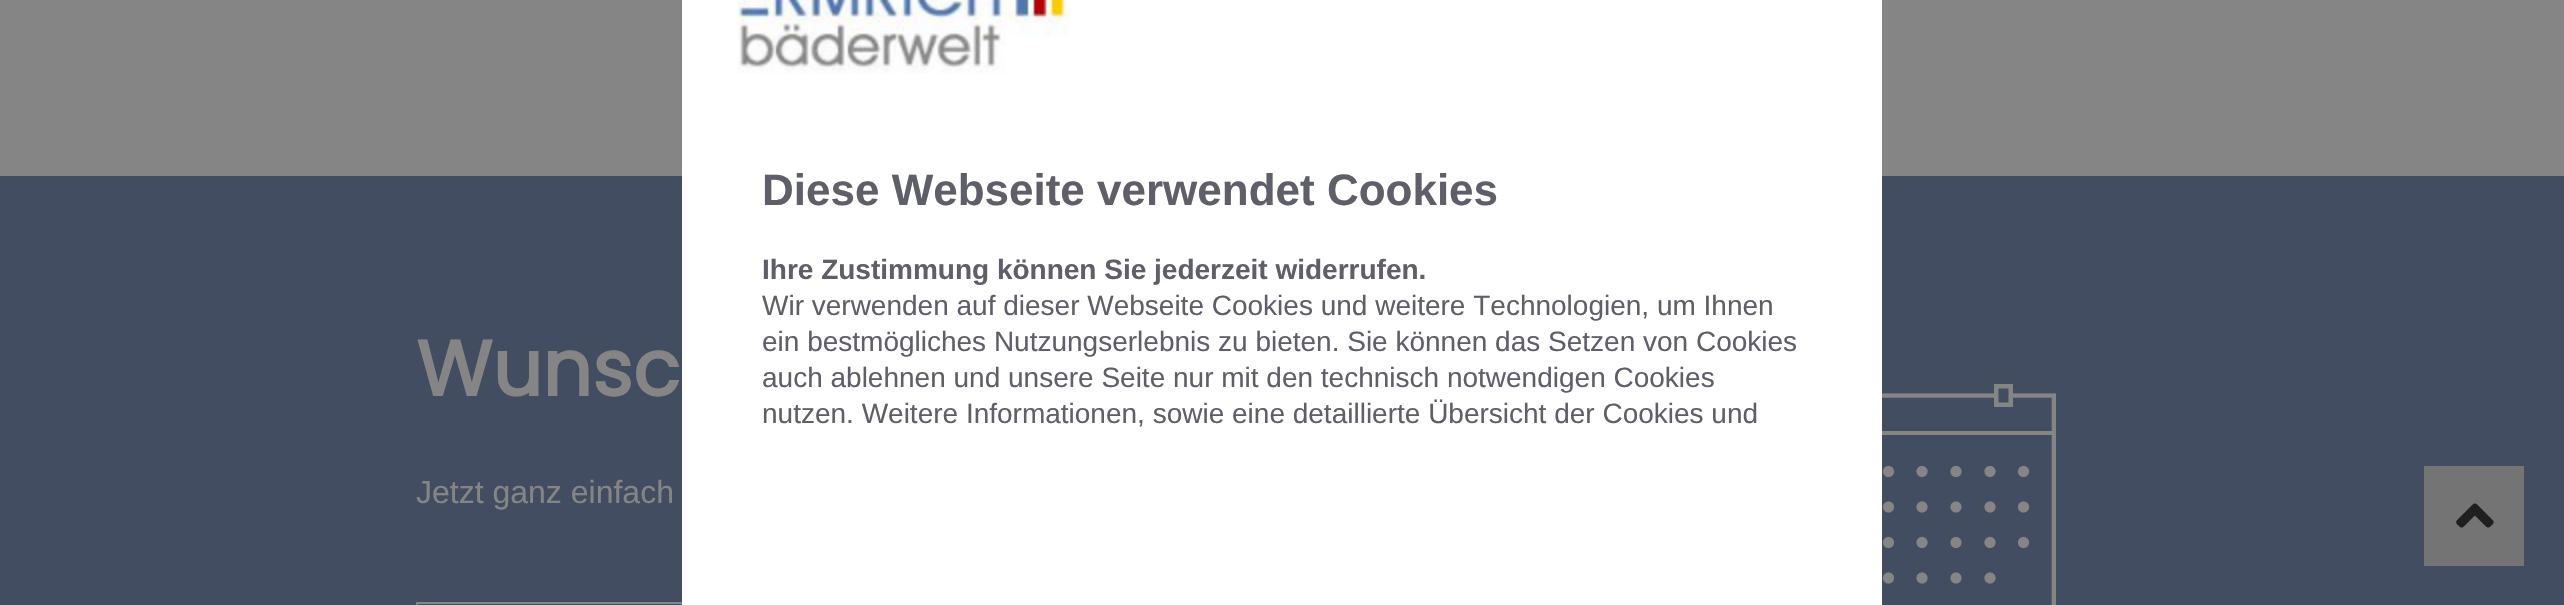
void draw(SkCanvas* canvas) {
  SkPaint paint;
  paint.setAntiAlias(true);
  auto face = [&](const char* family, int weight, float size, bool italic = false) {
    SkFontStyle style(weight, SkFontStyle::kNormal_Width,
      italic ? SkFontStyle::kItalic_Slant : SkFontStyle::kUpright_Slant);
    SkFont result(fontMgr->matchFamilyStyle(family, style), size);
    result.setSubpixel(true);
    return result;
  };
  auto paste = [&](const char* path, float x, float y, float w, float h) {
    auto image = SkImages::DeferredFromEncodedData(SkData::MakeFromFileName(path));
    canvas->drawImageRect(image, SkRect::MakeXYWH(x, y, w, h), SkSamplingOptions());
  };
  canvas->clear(0xff858585);
  paint.setColor(0xff424d62);
  canvas->drawRect(SkRect::MakeXYWH(0, 176, 2564, 429), paint);
  paint.setStroke(true);
  paint.setStrokeWidth(2);
  paint.setColor(0xff858585);
  canvas->drawRect(SkRect::MakeXYWH(417, 603, 480, 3), paint);
  paste("img/1.png", 1882, 384, 174, 221);
  paint.setStroke(false);
  paint.setColor(0xffffffff);
  canvas->drawRect(SkRect::MakeXYWH(682, 0, 1200, 605), paint);
  paste("img/2.png", 737, 0, 333, 74);
  paint.setColor(0xff747474);
  canvas->drawRect(SkRect::MakeXYWH(2424, 466, 100, 100), paint);
  paste("img/3.png", 2456, 503, 38, 25);
  auto f0 = face("Poppins", 700, 78);
  paint.setColor(0xff858585);
  canvas->drawString("Wunsc", 416, 396, f0, paint);
  auto f1 = face("Liberation Sans", 400, 32);
  canvas->drawString("Jetzt ganz einfach", 416, 503, f1, paint);
  auto f2 = face("Liberation Sans", 700, 44);
  paint.setColor(0xff5f5f6a);
  canvas->drawString("Diese Webseite verwendet Cookies", 762, 205, f2, paint);
  auto f3 = face("Liberation Sans", 700, 28);
  canvas->drawString("Ihre Zustimmung können Sie jederzeit widerrufen.", 762, 279, f3, paint);
  auto f4 = face("Liberation Sans", 400, 28);
  {
    const struct { const char* s; float x, y; } items[] = {
      {"Wir verwenden auf dieser Webseite Cookies und weitere Technologien, um Ihnen", 762, 315},
      {"ein bestmögliches Nutzungserlebnis zu bieten. Sie können das Setzen von Cookies", 762, 351},
      {"auch ablehnen und unsere Seite nur mit den technisch notwendigen Cookies", 762, 387},
      {"nutzen. Weitere Informationen, sowie eine detaillierte Übersicht der Cookies und", 762, 423},
    };
    for (auto [s, x, y] : items) {
      canvas->drawString(s, x, y, f4, paint);
    }
  }
}
